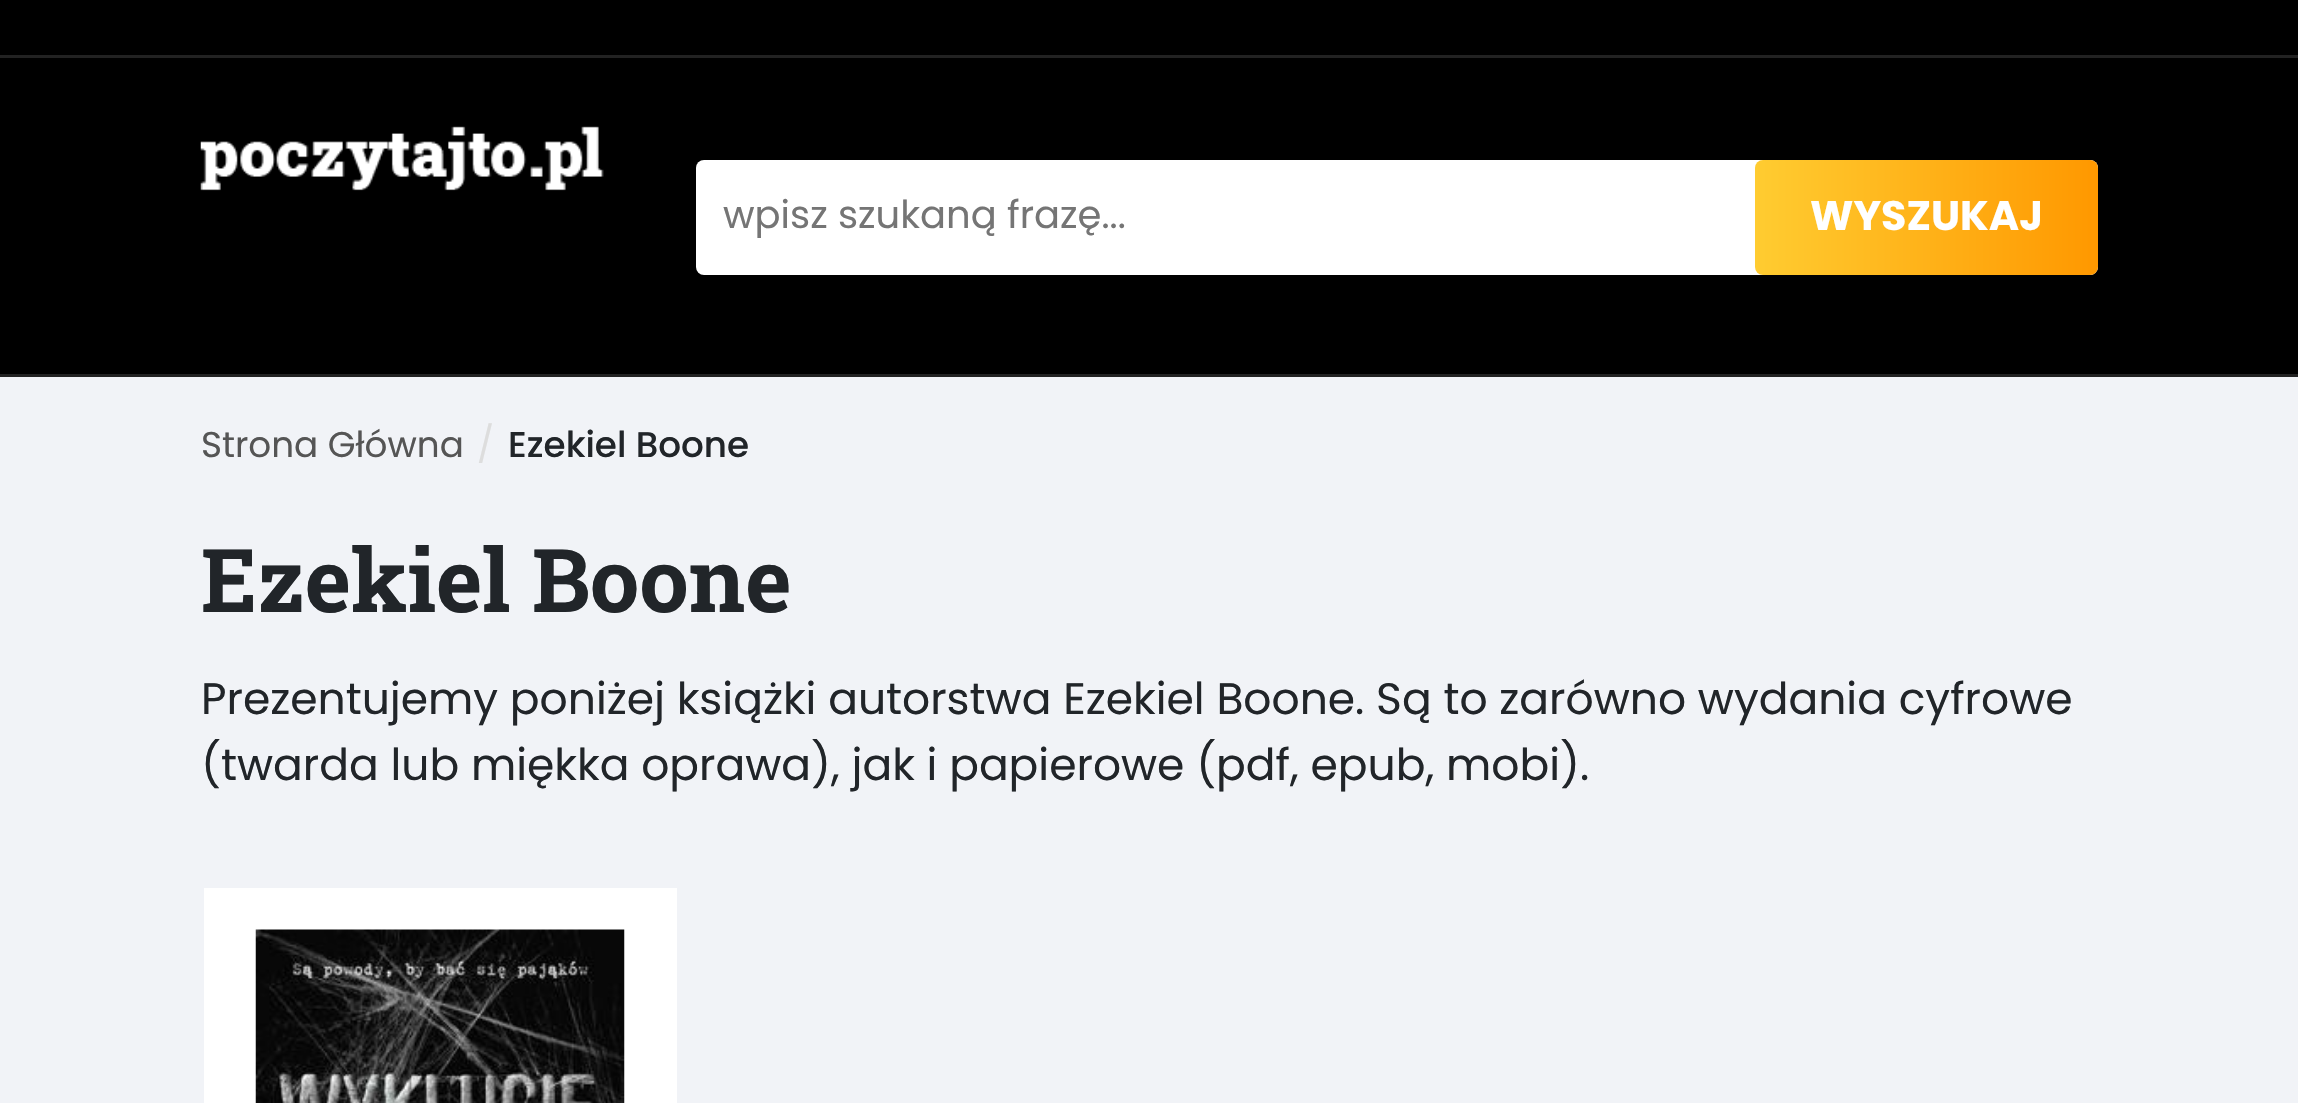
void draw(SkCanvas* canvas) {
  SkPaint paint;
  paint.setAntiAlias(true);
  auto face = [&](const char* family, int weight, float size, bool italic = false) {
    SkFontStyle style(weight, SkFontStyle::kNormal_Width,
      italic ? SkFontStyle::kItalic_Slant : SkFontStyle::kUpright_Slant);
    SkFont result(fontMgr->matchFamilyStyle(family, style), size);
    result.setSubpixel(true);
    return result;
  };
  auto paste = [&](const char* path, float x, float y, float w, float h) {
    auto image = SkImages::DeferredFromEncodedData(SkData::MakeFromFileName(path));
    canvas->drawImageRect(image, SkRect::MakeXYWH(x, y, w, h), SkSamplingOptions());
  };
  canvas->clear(0xfff1f3f7);
  {
    const struct { float x, y, w, h; SkColor color; } items[] = {
      {0, 0, 2298, 55, 0xff000000},
      {0, 55, 2298, 3, 0xff222222},
      {0, 58, 2298, 316, 0xff000000},
      {0, 374, 2298, 3, 0xff222222},
    };
    for (auto [x, y, w, h, color] : items) {
      paint.setColor(color);
      canvas->drawRect(SkRect::MakeXYWH(x, y, w, h), paint);
    }
  }
  paste("img/1.png", 200, 126, 404, 65);
  paint.setColor(0xffffffff);
  canvas->drawRoundRect(SkRect::MakeXYWH(696, 160, 1402, 115), 8, 8, paint);
  {
    const SkColor colors[] = {0xffffcc31, 0xffff9800};
    const float stops[] = {0, 1};
    const SkPoint ends[] = {{1755, 217}, {2098, 217}};
    paint.setShader(SkGradientShader::MakeLinear(ends, colors, stops, 2, SkTileMode::kClamp));
    paint.setAlpha(255);
  }
  canvas->drawRoundRect(SkRect::MakeXYWH(1755, 160, 343, 115), 8, 8, paint);
  paint.setShader(nullptr);
  paint.setColor(0xffffffff);
  canvas->drawRect(SkRect::MakeXYWH(204, 888, 473, 215), paint);
  paste("img/2.png", 255, 929, 370, 174);
  auto f0 = face("Poppins", 400, 38.5f);
  paint.setColor(0xff757575);
  canvas->drawString("wpisz szukaną frazę...", 723, 228, f0, paint);
  auto f1 = face("Poppins", 700, 41.25f);
  paint.setColor(0xffffffff);
  canvas->drawString("WYSZUKAJ", 1810, 230, f1, paint);
  auto f2 = face("Poppins", 400, 35.75f);
  paint.setColor(0xff555555);
  canvas->drawString("Strona Główna", 201, 457, f2, paint);
  paint.setColor(0xffdddddd);
  canvas->drawString("/", 477, 457, f2, paint);
  auto f3 = face("Poppins", 500, 35.75f);
  paint.setColor(0xff212529);
  canvas->drawString("Ezekiel Boone", 508, 457, f3, paint);
  auto f4 = face("Roboto Slab", 700, 88);
  canvas->drawString("Ezekiel Boone", 201, 612, f4, paint);
  auto f5 = face("Poppins", 400, 44);
  canvas->drawString("Prezentujemy poniżej książki autorstwa Ezekiel Boone. Są to zarówno wydania cyfrowe", 201, 714, f5, paint);
  canvas->drawString("(twarda lub miękka oprawa), jak i papierowe (pdf, epub, mobi).", 201, 780, f5, paint);
}
